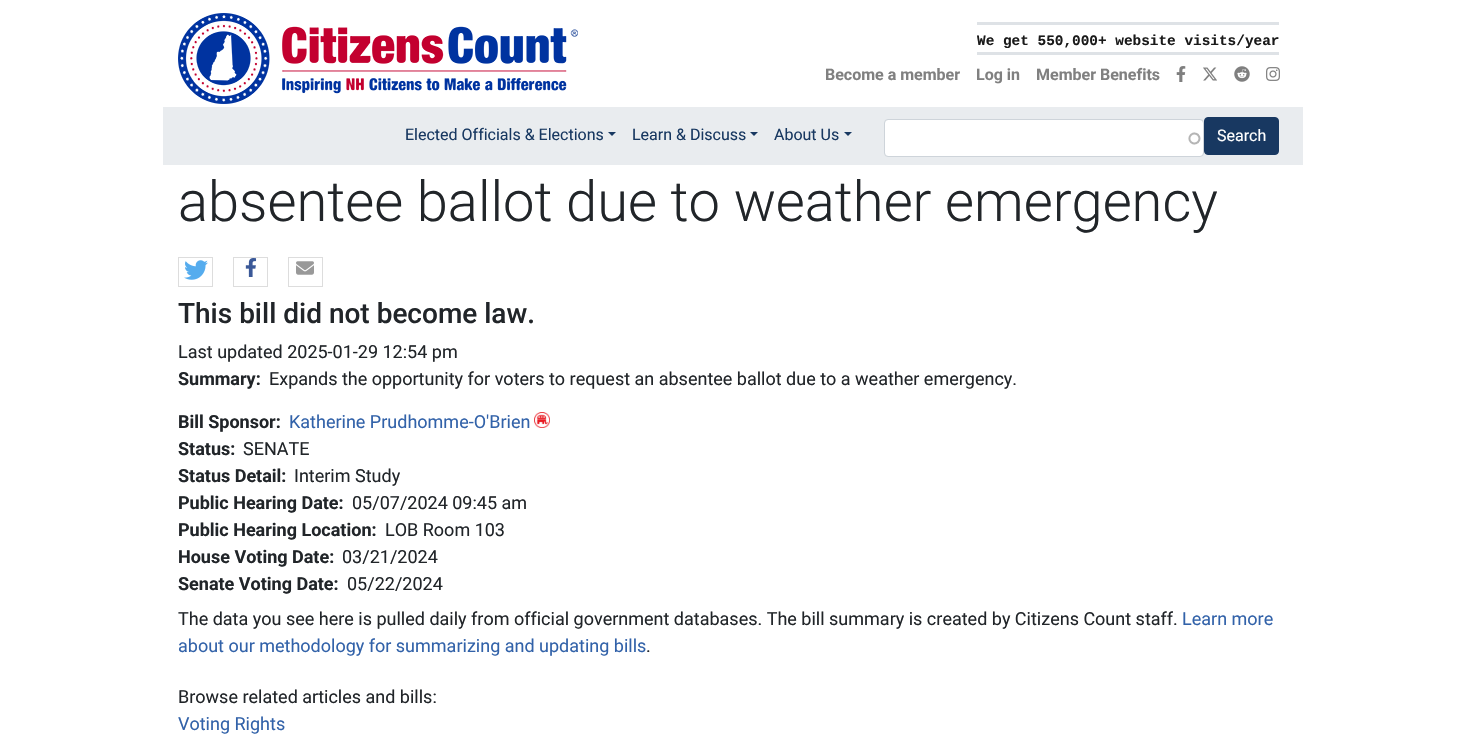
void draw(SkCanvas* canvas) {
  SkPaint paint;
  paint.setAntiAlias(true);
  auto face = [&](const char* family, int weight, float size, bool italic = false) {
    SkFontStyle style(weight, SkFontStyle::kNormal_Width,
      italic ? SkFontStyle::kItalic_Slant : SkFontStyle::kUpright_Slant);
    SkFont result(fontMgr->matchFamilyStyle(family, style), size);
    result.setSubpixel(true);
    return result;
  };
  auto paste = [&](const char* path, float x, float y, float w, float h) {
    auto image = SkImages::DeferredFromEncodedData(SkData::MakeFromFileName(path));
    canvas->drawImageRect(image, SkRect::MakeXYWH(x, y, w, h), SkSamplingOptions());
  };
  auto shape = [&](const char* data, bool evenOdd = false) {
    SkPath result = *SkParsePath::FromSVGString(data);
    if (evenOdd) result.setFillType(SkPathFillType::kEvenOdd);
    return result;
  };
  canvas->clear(0xffffffff);
  paste("img/1.png", 178, 13, 400, 91);
  paint.setColor(0xffdee2e6);
  canvas->drawRect(SkRect::MakeXYWH(977, 22, 302, 3), paint);
  canvas->drawRect(SkRect::MakeXYWH(977, 52, 302, 3), paint);
  paste("img/2.png", 1176, 66, 10, 16);
  paste("img/3.png", 1203, 67, 14, 14);
  paste("img/4.png", 1234, 66, 16, 16);
  paste("img/5.png", 1266, 67, 14, 14);
  paint.setColor(0xffe9ecef);
  canvas->drawRect(SkRect::MakeXYWH(163, 107, 1140, 58), paint);
  paint.setColor(0xff183861);
  canvas->drawPath(shape("M608 132H616L612 136Z"), paint);
  canvas->drawPath(shape("M750 132H758L754 136Z"), paint);
  canvas->drawPath(shape("M844 132H852L848 136Z"), paint);
  paint.setColor(0xffffffff);
  canvas->drawRoundRect(SkRect::MakeXYWH(885, 120, 318, 36), 3, 3, paint);
  paste("img/6.png", 1188, 132, 13, 13);
  paint.setStroke(true);
  paint.setStrokeWidth(1);
  paint.setColor(0xffced4da);
  canvas->drawRoundRect(SkRect::MakeXYWH(884.5f, 119.5f, 319, 37), 3.5f, 3.5f, paint);
  paint.setStroke(false);
  paint.setColor(0xff183861);
  canvas->drawRoundRect(SkRect::MakeXYWH(1204.5f, 117.5f, 74, 37), 3.5f, 3.5f, paint);
  paint.setStroke(true);
  canvas->drawRoundRect(SkRect::MakeXYWH(1204.5f, 117.5f, 74, 37), 3.5f, 3.5f, paint);
  paint.setColor(0xffdddddd);
  canvas->drawRect(SkRect::MakeXYWH(178.5f, 257.5f, 34, 29), paint);
  paste("img/7.png", 184, 260, 24, 20);
  canvas->drawRect(SkRect::MakeXYWH(233.5f, 257.5f, 34, 29), paint);
  paste("img/8.png", 245, 258, 12, 19);
  canvas->drawRect(SkRect::MakeXYWH(288.5f, 257.5f, 34, 29), paint);
  paste("img/9.png", 296, 261, 18, 14);
  paste("img/10.png", 534, 412, 16, 16);
  auto f0 = face("Liberation Mono", 700, 14.4f);
  paint.setStroke(false);
  paint.setColor(0xff1a1a1a);
  canvas->drawString("We get 550,000+ website visits/year", 977, 45, f0, paint);
  auto f1 = face("Roboto", 700, 16);
  paint.setColor(0xff808080);
  {
    const struct { const char* s; float x, y; } items[] = {
      {"Become a member", 825, 80},
      {"Log in", 976, 80},
      {"Member Benefits", 1036, 80},
    };
    for (auto [s, x, y] : items) {
      canvas->drawString(s, x, y, f1, paint);
    }
  }
  auto f2 = face("Roboto", 400, 16);
  paint.setColor(0xff183861);
  {
    const struct { const char* s; float x, y; } items[] = {
      {"Elected Officials & Elections", 405, 140},
      {"Learn & Discuss", 632, 140},
      {"About Us", 774, 140},
    };
    for (auto [s, x, y] : items) {
      canvas->drawString(s, x, y, f2, paint);
    }
  }
  paint.setColor(0xffffffff);
  canvas->drawString("Search", 1217, 141, f2, paint);
  auto f3 = face("Roboto", 300, 56);
  paint.setColor(0xff212529);
  canvas->drawString("absentee ballot due to weather emergency", 178, 221, f3, paint);
  auto f4 = face("Roboto", 500, 28);
  canvas->drawString("This bill did not become law.", 178, 323, f4, paint);
  auto f5 = face("Roboto", 400, 18);
  canvas->drawString("Last updated 2025-01-29 12:54 pm", 178, 358, f5, paint);
  auto f6 = face("Roboto", 700, 18);
  canvas->drawString("Summary:", 178, 385, f6, paint);
  canvas->drawString("Expands the opportunity for voters to request an absentee ballot due to a weather emergency.", 269, 385, f5, paint);
  canvas->drawString("Bill Sponsor:", 178, 428, f6, paint);
  paint.setColor(0xff3262a9);
  canvas->drawString("Katherine Prudhomme-O'Brien", 289, 428, f5, paint);
  paint.setColor(0xff212529);
  canvas->drawString("Status:", 178, 455, f6, paint);
  canvas->drawString("SENATE", 243, 455, f5, paint);
  canvas->drawString("Status Detail:", 178, 482, f6, paint);
  canvas->drawString("Interim Study", 294, 482, f5, paint);
  canvas->drawString("Public Hearing Date:", 178, 509, f6, paint);
  canvas->drawString("05/07/2024 09:45 am", 352, 509, f5, paint);
  canvas->drawString("Public Hearing Location:", 178, 536, f6, paint);
  canvas->drawString("LOB Room 103", 385, 536, f5, paint);
  canvas->drawString("House Voting Date:", 178, 563, f6, paint);
  canvas->drawString("03/21/2024", 342, 563, f5, paint);
  canvas->drawString("Senate Voting Date:", 178, 590, f6, paint);
  canvas->drawString("05/22/2024", 347, 590, f5, paint);
  canvas->drawString("The data you see here is pulled daily from official government databases. The bill summary is created by Citizens Count staff.", 178, 625, f5, paint);
  paint.setColor(0xff3262a9);
  canvas->drawString("Learn more", 1182, 625, f5, paint);
  canvas->drawString("about our methodology for summarizing and updating bills", 178, 652, f5, paint);
  paint.setColor(0xff212529);
  canvas->drawString(".", 646, 652, f5, paint);
  canvas->drawString("Browse related articles and bills:", 178, 703, f5, paint);
  paint.setColor(0xff3262a9);
  canvas->drawString("Voting Rights", 178, 730, f5, paint);
}
